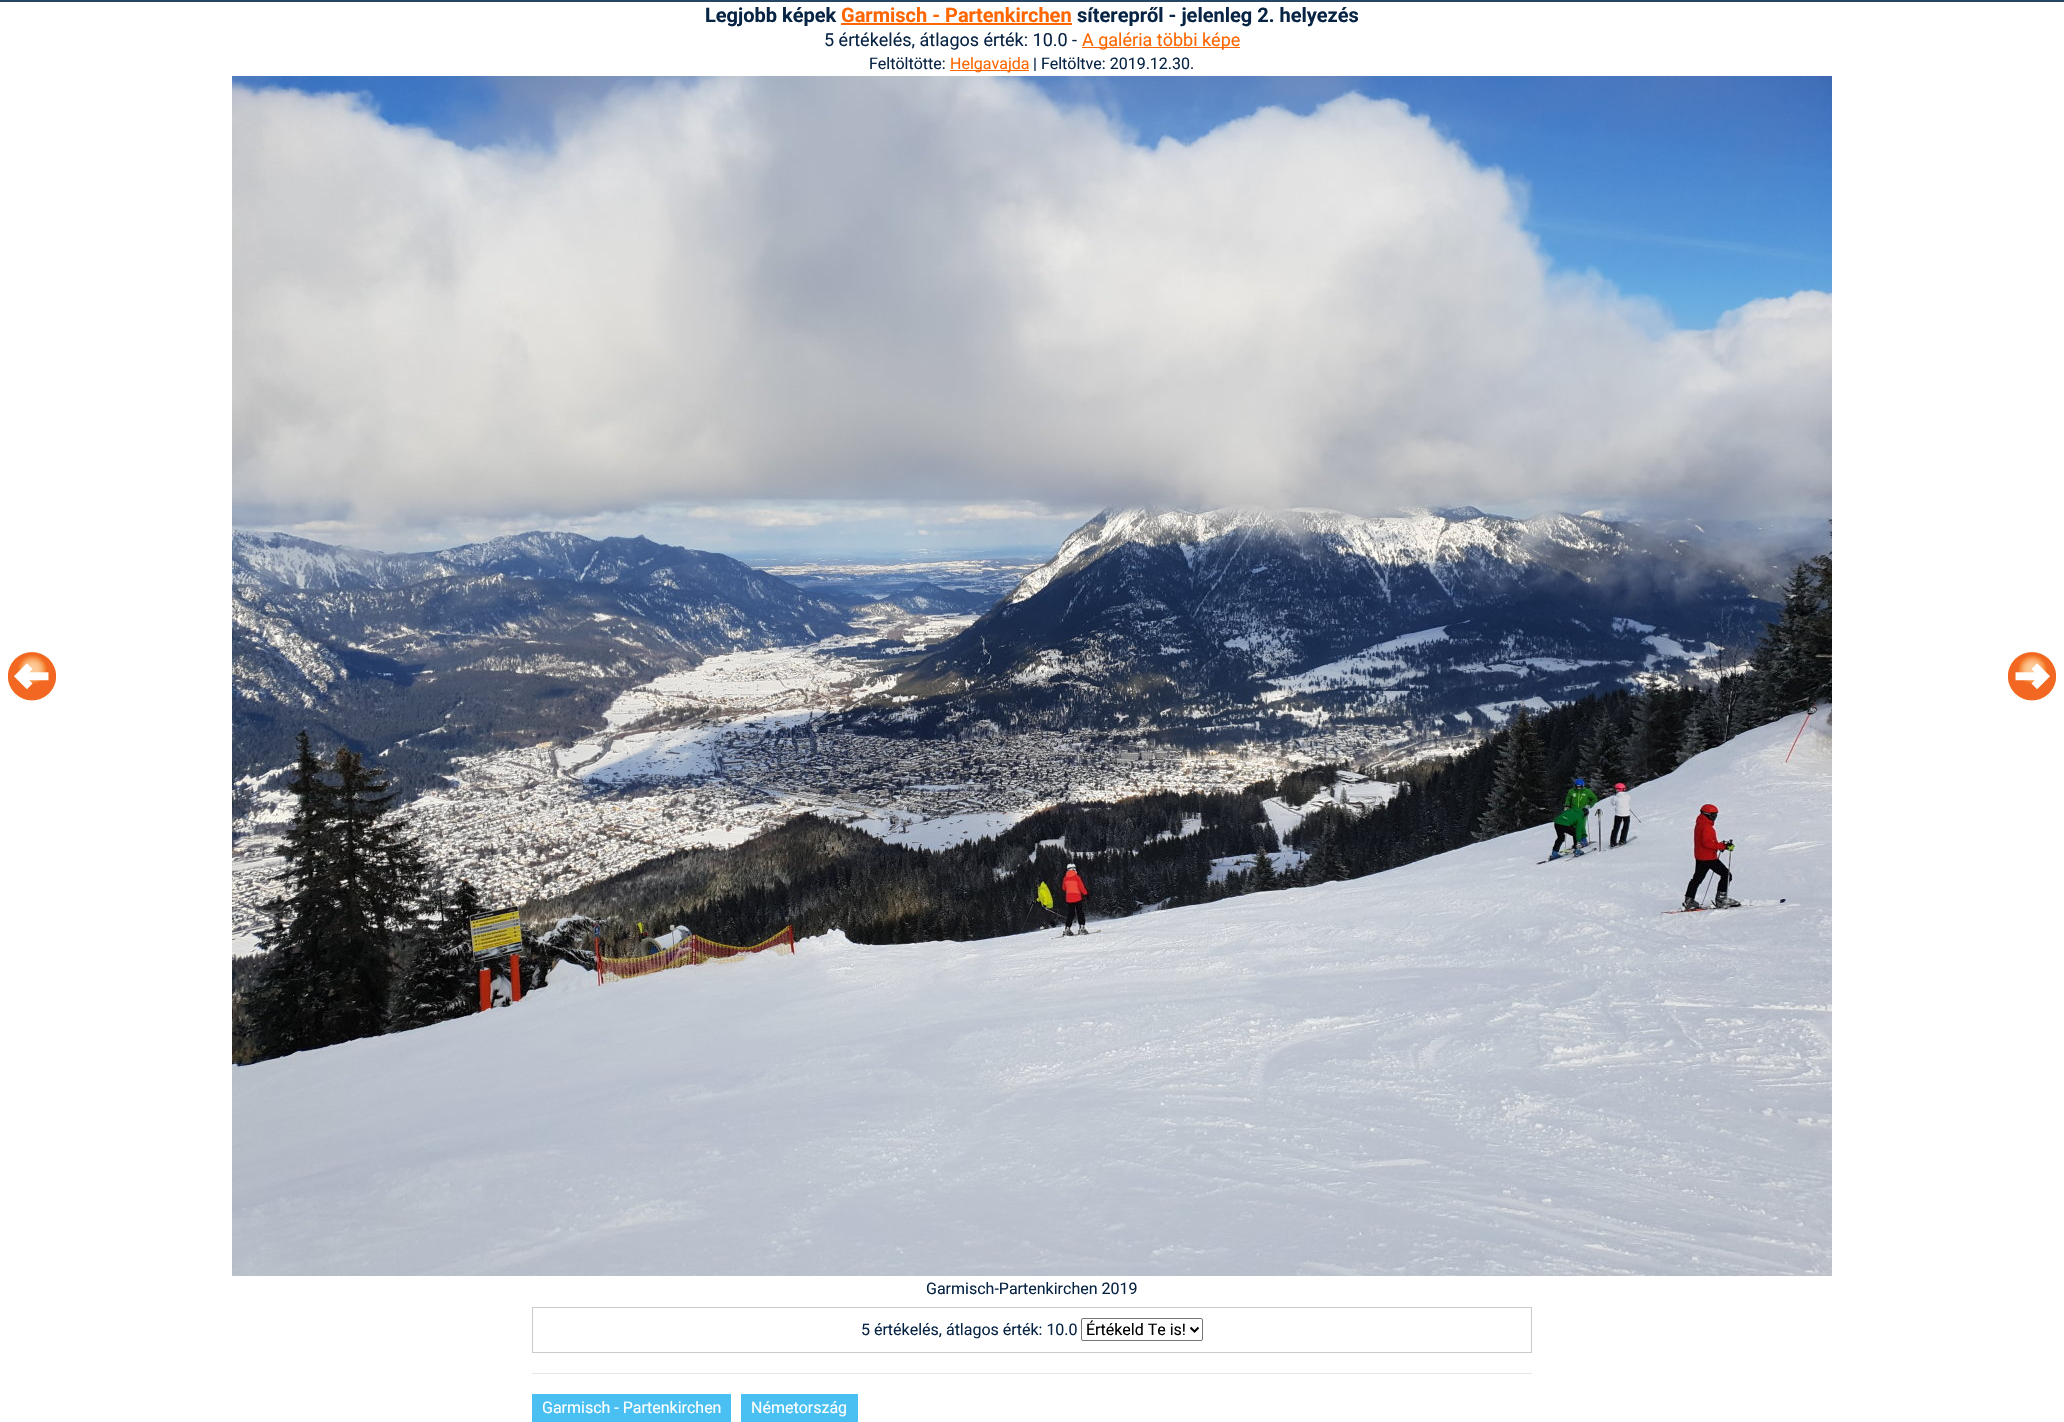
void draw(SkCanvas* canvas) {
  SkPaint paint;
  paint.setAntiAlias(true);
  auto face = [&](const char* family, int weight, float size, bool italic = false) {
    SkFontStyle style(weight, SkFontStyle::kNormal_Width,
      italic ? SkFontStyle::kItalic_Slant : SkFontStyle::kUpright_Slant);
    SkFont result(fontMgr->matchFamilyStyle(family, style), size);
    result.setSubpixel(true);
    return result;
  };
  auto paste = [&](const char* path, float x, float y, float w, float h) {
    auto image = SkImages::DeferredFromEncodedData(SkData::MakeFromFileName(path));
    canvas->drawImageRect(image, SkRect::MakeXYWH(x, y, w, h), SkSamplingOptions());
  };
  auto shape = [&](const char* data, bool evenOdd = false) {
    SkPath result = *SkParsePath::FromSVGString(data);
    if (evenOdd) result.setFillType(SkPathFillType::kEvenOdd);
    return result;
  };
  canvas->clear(0xffffffff);
  {
    const struct { float x, y, w, h; SkColor color; } items[] = {
      {0, 0, 2064, 2, 0xff274663},
      {841, 23, 231, 2, 0xffff6600},
      {1082, 47, 158, 1, 0xffff6600},
      {950, 70, 79, 1, 0xffff6600},
    };
    for (auto [x, y, w, h, color] : items) {
      paint.setColor(color);
      canvas->drawRect(SkRect::MakeXYWH(x, y, w, h), paint);
    }
  }
  paste("img/1.png", 7, 652, 49, 49);
  paste("img/2.png", 232, 76, 1600, 1200);
  paste("img/3.png", 2007, 652, 49, 49);
  paint.setStroke(true);
  paint.setStrokeWidth(1);
  paint.setColor(0xffcbcac4);
  canvas->drawRect(SkRect::MakeXYWH(532.5f, 1307.5f, 999, 45), paint);
  paint.setColor(0xff767676);
  canvas->drawRoundRect(SkRect::MakeXYWH(1081.5f, 1318.5f, 121, 22), 1.5f, 1.5f, paint);
  paint.setStrokeWidth(2);
  paint.setColor(0xff000000);
  canvas->drawPath(shape("M1190.5 1327.5L1194.5 1331.5L1198.5 1327.5"), paint);
  paint.setStroke(false);
  {
    const struct { float x, y, w, h; SkColor color; } items[] = {
      {532, 1373, 1000, 1, 0xffe6e6e6},
      {532, 1394, 199, 28, 0xff4ac0f2},
      {741, 1394, 117, 28, 0xff4ac0f2},
    };
    for (auto [x, y, w, h, color] : items) {
      paint.setColor(color);
      canvas->drawRect(SkRect::MakeXYWH(x, y, w, h), paint);
    }
  }
  auto f0 = face("Roboto", 700, 20);
  paint.setColor(0xff072445);
  canvas->drawString("Legjobb képek", 705, 22, f0, paint);
  paint.setColor(0xffff6600);
  canvas->drawString("Garmisch - Partenkirchen", 841, 22, f0, paint);
  paint.setColor(0xff072445);
  canvas->drawString("síterepről - jelenleg 2. helyezés", 1077, 22, f0, paint);
  auto f1 = face("Roboto", 400, 18);
  canvas->drawString("5 értékelés, átlagos érték: 10.0 -", 824, 46, f1, paint);
  paint.setColor(0xffff6600);
  canvas->drawString("A galéria többi képe", 1082, 46, f1, paint);
  auto f2 = face("Roboto", 400, 16);
  paint.setColor(0xff072445);
  canvas->drawString("Feltöltötte:", 869, 69, f2, paint);
  paint.setColor(0xffff6600);
  canvas->drawString("Helgavajda", 950, 69, f2, paint);
  paint.setColor(0xff072445);
  {
    const struct { const char* s; float x, y; } items[] = {
      {"| Feltöltve: 2019.12.30.", 1033, 69},
      {"Garmisch-Partenkirchen 2019", 926, 1294},
      {"5 értékelés, átlagos érték: 10.0", 861, 1335},
    };
    for (auto [s, x, y] : items) {
      canvas->drawString(s, x, y, f2, paint);
    }
  }
  paint.setColor(0xff000000);
  canvas->drawString("Értékeld Te is!", 1086, 1335, f2, paint);
  paint.setColor(0xffffffff);
  canvas->drawString("Garmisch - Partenkirchen", 542, 1413, f2, paint);
  canvas->drawString("Németország", 751, 1413, f2, paint);
}
